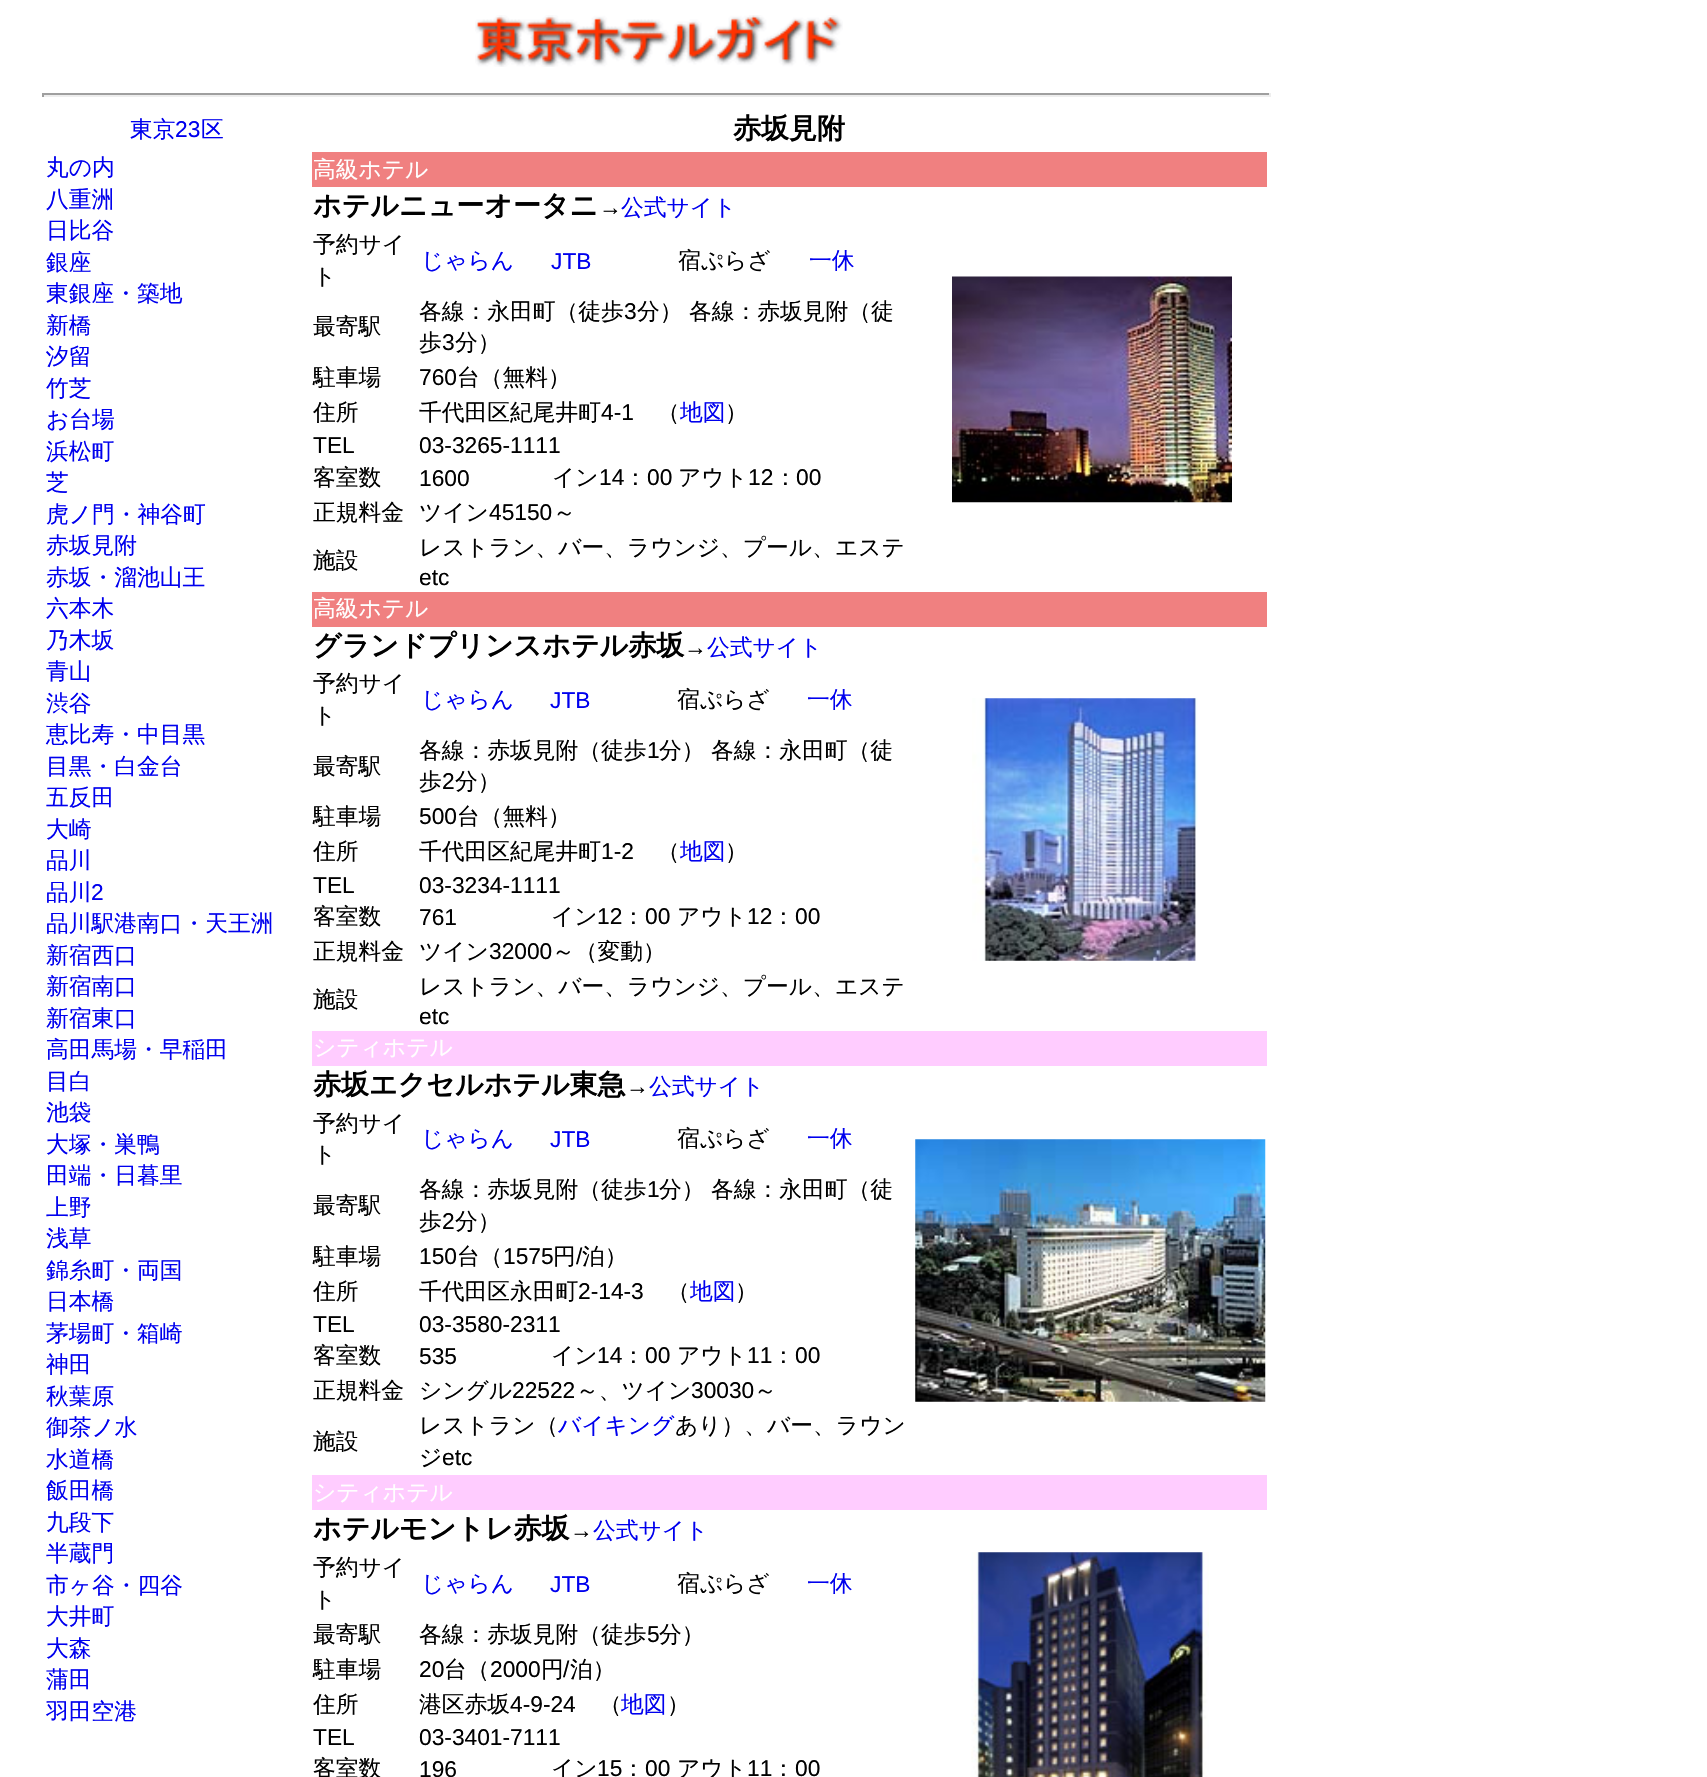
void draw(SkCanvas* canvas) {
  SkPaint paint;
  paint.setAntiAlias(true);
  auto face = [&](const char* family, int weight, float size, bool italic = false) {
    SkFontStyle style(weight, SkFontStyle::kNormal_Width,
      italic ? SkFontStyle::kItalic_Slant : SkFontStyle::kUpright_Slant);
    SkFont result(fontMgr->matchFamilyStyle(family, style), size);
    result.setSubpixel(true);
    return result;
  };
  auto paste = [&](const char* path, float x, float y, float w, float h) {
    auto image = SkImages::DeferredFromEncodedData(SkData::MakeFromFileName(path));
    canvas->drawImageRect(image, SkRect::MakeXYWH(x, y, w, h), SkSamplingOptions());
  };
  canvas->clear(0xffffffff);
  paste("img/1.png", 475, 15, 368, 52);
  {
    const struct { float x, y, w, h; SkColor color; } items[] = {
      {42, 93, 1229, 2, 0xff9f9f9f},
      {1269, 93, 2, 4, 0xffeeeeee},
      {42, 95, 1229, 2, 0xffeeeeee},
      {42, 93, 2, 4, 0xff9f9f9f},
      {312, 152, 955, 35, 0xfff08080},
    };
    for (auto [x, y, w, h, color] : items) {
      paint.setColor(color);
      canvas->drawRect(SkRect::MakeXYWH(x, y, w, h), paint);
    }
  }
  paste("img/2.png", 952, 276, 280, 227);
  canvas->drawRect(SkRect::MakeXYWH(312, 592, 955, 35), paint);
  paste("img/3.png", 972, 698, 226, 263);
  paint.setColor(0xffffccff);
  canvas->drawRect(SkRect::MakeXYWH(312, 1031, 955, 35), paint);
  paste("img/4.png", 915, 1139, 351, 263);
  canvas->drawRect(SkRect::MakeXYWH(312, 1475, 955, 35), paint);
  paste("img/5.png", 971, 1552, 238, 225);
  auto f0 = face("WenQuanYi Zen Hei", 500, 22.75f);
  paint.setColor(0xff0000ee);
  canvas->drawString("東京", 130, 137, f0, paint);
  auto f1 = face("Liberation Sans", 400, 22.75f);
  canvas->drawString("23", 175, 137, f1, paint);
  canvas->drawString("区", 201, 137, f0, paint);
  auto f2 = face("WenQuanYi Zen Hei", 700, 28);
  paint.setColor(0xff000000);
  canvas->drawString("赤坂見附", 733, 138, f2, paint);
  paint.setColor(0xff0000ee);
  {
    const struct { const char* s; float x, y; } items[] = {
      {"丸の内", 46, 175},
      {"八重洲", 46, 207},
      {"日比谷", 46, 238},
      {"銀座", 46, 270},
      {"東銀座・築地", 46, 301},
      {"新橋", 46, 333},
      {"汐留", 46, 364},
      {"竹芝", 46, 396},
      {"お台場", 46, 427},
      {"浜松町", 46, 459},
      {"芝", 46, 490},
      {"虎ノ門・神谷町", 46, 522},
      {"赤坂見附", 46, 553},
      {"赤坂・溜池山王", 46, 585},
      {"六本木", 46, 616},
      {"乃木坂", 46, 648},
      {"青山", 46, 679},
      {"渋谷", 46, 711},
      {"恵比寿・中目黒", 46, 742},
      {"目黒・白金台", 46, 774},
      {"五反田", 46, 805},
      {"大崎", 46, 837},
      {"品川", 46, 868},
      {"品川", 46, 900},
    };
    for (auto [s, x, y] : items) {
      canvas->drawString(s, x, y, f0, paint);
    }
  }
  canvas->drawString("2", 91, 900, f1, paint);
  {
    const struct { const char* s; float x, y; } items[] = {
      {"品川駅港南口・天王洲", 46, 931},
      {"新宿西口", 46, 963},
      {"新宿南口", 46, 994},
      {"新宿東口", 46, 1026},
      {"高田馬場・早稲田", 46, 1057},
      {"目白", 46, 1089},
      {"池袋", 46, 1120},
      {"大塚・巣鴨", 46, 1152},
      {"田端・日暮里", 46, 1183},
      {"上野", 46, 1215},
      {"浅草", 46, 1246},
      {"錦糸町・両国", 46, 1278},
      {"日本橋", 46, 1309},
      {"茅場町・箱崎", 46, 1341},
      {"神田", 46, 1372},
      {"秋葉原", 46, 1404},
      {"御茶ノ水", 46, 1435},
      {"水道橋", 46, 1467},
      {"飯田橋", 46, 1498},
      {"九段下", 46, 1530},
      {"半蔵門", 46, 1561},
      {"市ヶ谷・四谷", 46, 1593},
      {"大井町", 46, 1624},
      {"大森", 46, 1656},
      {"蒲田", 46, 1687},
      {"羽田空港", 46, 1719},
    };
    for (auto [s, x, y] : items) {
      canvas->drawString(s, x, y, f0, paint);
    }
  }
  paint.setColor(0xffffffff);
  canvas->drawString("高級ホテル", 313, 177, f0, paint);
  paint.setColor(0xff000000);
  canvas->drawString("ホテルニューオータニ", 313, 215, f2, paint);
  canvas->drawString("→", 599, 215, f1, paint);
  paint.setColor(0xff0000ee);
  canvas->drawString("公式サイト", 621, 215, f0, paint);
  paint.setColor(0xff000000);
  canvas->drawString("予約サイ", 313, 252, f0, paint);
  canvas->drawString("ト", 313, 284, f0, paint);
  paint.setColor(0xff0000ee);
  canvas->drawString("じゃらん", 421, 268, f0, paint);
  canvas->drawString("JTB", 551, 269, f1, paint);
  paint.setColor(0xff000000);
  canvas->drawString("宿ぷらざ", 678, 268, f0, paint);
  paint.setColor(0xff0000ee);
  canvas->drawString("一休", 809, 268, f0, paint);
  paint.setColor(0xff000000);
  canvas->drawString("最寄駅", 313, 334, f0, paint);
  canvas->drawString("各線：永田町（徒歩", 419, 319, f0, paint);
  canvas->drawString("3", 624, 319, f1, paint);
  {
    const struct { const char* s; float x, y; } items[] = {
      {"分）", 637, 319},
      {"各線：赤坂見附（徒", 689, 319},
      {"歩", 419, 350},
    };
    for (auto [s, x, y] : items) {
      canvas->drawString(s, x, y, f0, paint);
    }
  }
  canvas->drawString("3", 442, 350, f1, paint);
  canvas->drawString("分）", 455, 350, f0, paint);
  canvas->drawString("駐車場", 313, 385, f0, paint);
  canvas->drawString("760", 419, 385, f1, paint);
  {
    const struct { const char* s; float x, y; } items[] = {
      {"台（無料）", 457, 385},
      {"住所", 313, 420},
      {"千代田区紀尾井町", 419, 420},
    };
    for (auto [s, x, y] : items) {
      canvas->drawString(s, x, y, f0, paint);
    }
  }
  canvas->drawString("4-1", 601, 420, f1, paint);
  canvas->drawString("（", 657, 420, f0, paint);
  paint.setColor(0xff0000ee);
  canvas->drawString("地図", 680, 420, f0, paint);
  paint.setColor(0xff000000);
  canvas->drawString("）", 725, 420, f0, paint);
  canvas->drawString("TEL", 313, 453, f1, paint);
  canvas->drawString("03-3265-1111", 419, 453, f1, paint);
  canvas->drawString("客室数", 313, 485, f0, paint);
  canvas->drawString("1600", 419, 486, f1, paint);
  canvas->drawString("イン", 552, 485, f0, paint);
  canvas->drawString("14", 599, 485, f1, paint);
  canvas->drawString("：", 624, 485, f0, paint);
  canvas->drawString("00", 647, 485, f1, paint);
  canvas->drawString("アウト", 678, 485, f0, paint);
  canvas->drawString("12", 748, 485, f1, paint);
  canvas->drawString("：", 774, 485, f0, paint);
  canvas->drawString("00", 796, 485, f1, paint);
  canvas->drawString("正規料金", 313, 520, f0, paint);
  canvas->drawString("ツイン", 419, 520, f0, paint);
  canvas->drawString("45150", 489, 520, f1, paint);
  {
    const struct { const char* s; float x, y; } items[] = {
      {"～", 553, 520},
      {"施設", 313, 568},
      {"レストラン、バー、ラウンジ、プール、エステ", 419, 555},
    };
    for (auto [s, x, y] : items) {
      canvas->drawString(s, x, y, f0, paint);
    }
  }
  canvas->drawString("etc", 419, 585, f1, paint);
  paint.setColor(0xffffffff);
  canvas->drawString("高級ホテル", 313, 616, f0, paint);
  paint.setColor(0xff000000);
  canvas->drawString("グランドプリンスホテル赤坂", 313, 655, f2, paint);
  canvas->drawString("→", 684, 655, f1, paint);
  paint.setColor(0xff0000ee);
  canvas->drawString("公式サイト", 707, 655, f0, paint);
  paint.setColor(0xff000000);
  canvas->drawString("予約サイ", 313, 691, f0, paint);
  canvas->drawString("ト", 313, 723, f0, paint);
  paint.setColor(0xff0000ee);
  canvas->drawString("じゃらん", 421, 707, f0, paint);
  canvas->drawString("JTB", 550, 708, f1, paint);
  paint.setColor(0xff000000);
  canvas->drawString("宿ぷらざ", 677, 707, f0, paint);
  paint.setColor(0xff0000ee);
  canvas->drawString("一休", 807, 707, f0, paint);
  paint.setColor(0xff000000);
  canvas->drawString("最寄駅", 313, 774, f0, paint);
  canvas->drawString("各線：赤坂見附（徒歩", 419, 758, f0, paint);
  canvas->drawString("1", 647, 758, f1, paint);
  {
    const struct { const char* s; float x, y; } items[] = {
      {"分）", 659, 758},
      {"各線：永田町（徒", 711, 758},
      {"歩", 419, 789},
    };
    for (auto [s, x, y] : items) {
      canvas->drawString(s, x, y, f0, paint);
    }
  }
  canvas->drawString("2", 442, 789, f1, paint);
  canvas->drawString("分）", 455, 789, f0, paint);
  canvas->drawString("駐車場", 313, 824, f0, paint);
  canvas->drawString("500", 419, 824, f1, paint);
  {
    const struct { const char* s; float x, y; } items[] = {
      {"台（無料）", 457, 824},
      {"住所", 313, 859},
      {"千代田区紀尾井町", 419, 859},
    };
    for (auto [s, x, y] : items) {
      canvas->drawString(s, x, y, f0, paint);
    }
  }
  canvas->drawString("1-2", 601, 859, f1, paint);
  canvas->drawString("（", 657, 859, f0, paint);
  paint.setColor(0xff0000ee);
  canvas->drawString("地図", 680, 859, f0, paint);
  paint.setColor(0xff000000);
  canvas->drawString("）", 725, 859, f0, paint);
  canvas->drawString("TEL", 313, 893, f1, paint);
  canvas->drawString("03-3234-1111", 419, 893, f1, paint);
  canvas->drawString("客室数", 313, 924, f0, paint);
  canvas->drawString("761", 419, 925, f1, paint);
  canvas->drawString("イン", 551, 924, f0, paint);
  canvas->drawString("12", 597, 924, f1, paint);
  canvas->drawString("：", 622, 924, f0, paint);
  canvas->drawString("00", 645, 924, f1, paint);
  canvas->drawString("アウト", 677, 924, f0, paint);
  canvas->drawString("12", 747, 924, f1, paint);
  canvas->drawString("：", 772, 924, f0, paint);
  canvas->drawString("00", 795, 924, f1, paint);
  canvas->drawString("正規料金", 313, 959, f0, paint);
  canvas->drawString("ツイン", 419, 959, f0, paint);
  canvas->drawString("32000", 489, 959, f1, paint);
  {
    const struct { const char* s; float x, y; } items[] = {
      {"～（変動）", 552, 959},
      {"施設", 313, 1007},
      {"レストラン、バー、ラウンジ、プール、エステ", 419, 994},
    };
    for (auto [s, x, y] : items) {
      canvas->drawString(s, x, y, f0, paint);
    }
  }
  canvas->drawString("etc", 419, 1024, f1, paint);
  paint.setColor(0xffffffff);
  canvas->drawString("シティホテル", 313, 1055, f0, paint);
  paint.setColor(0xff000000);
  canvas->drawString("赤坂エクセルホテル東急", 313, 1094, f2, paint);
  canvas->drawString("→", 626, 1094, f1, paint);
  paint.setColor(0xff0000ee);
  canvas->drawString("公式サイト", 649, 1094, f0, paint);
  paint.setColor(0xff000000);
  canvas->drawString("予約サイ", 313, 1131, f0, paint);
  canvas->drawString("ト", 313, 1162, f0, paint);
  paint.setColor(0xff0000ee);
  canvas->drawString("じゃらん", 421, 1146, f0, paint);
  canvas->drawString("JTB", 550, 1147, f1, paint);
  paint.setColor(0xff000000);
  canvas->drawString("宿ぷらざ", 677, 1146, f0, paint);
  paint.setColor(0xff0000ee);
  canvas->drawString("一休", 807, 1146, f0, paint);
  paint.setColor(0xff000000);
  canvas->drawString("最寄駅", 313, 1213, f0, paint);
  canvas->drawString("各線：赤坂見附（徒歩", 419, 1197, f0, paint);
  canvas->drawString("1", 647, 1197, f1, paint);
  {
    const struct { const char* s; float x, y; } items[] = {
      {"分）", 659, 1197},
      {"各線：永田町（徒", 711, 1197},
      {"歩", 419, 1229},
    };
    for (auto [s, x, y] : items) {
      canvas->drawString(s, x, y, f0, paint);
    }
  }
  canvas->drawString("2", 442, 1229, f1, paint);
  canvas->drawString("分）", 455, 1229, f0, paint);
  canvas->drawString("駐車場", 313, 1264, f0, paint);
  canvas->drawString("150", 419, 1264, f1, paint);
  canvas->drawString("台（", 457, 1264, f0, paint);
  canvas->drawString("1575", 503, 1264, f1, paint);
  canvas->drawString("円", 553, 1264, f0, paint);
  canvas->drawString("/", 576, 1264, f1, paint);
  {
    const struct { const char* s; float x, y; } items[] = {
      {"泊）", 582, 1264},
      {"住所", 313, 1299},
      {"千代田区永田町", 419, 1299},
    };
    for (auto [s, x, y] : items) {
      canvas->drawString(s, x, y, f0, paint);
    }
  }
  canvas->drawString("2-14-3", 578, 1299, f1, paint);
  canvas->drawString("（", 667, 1299, f0, paint);
  paint.setColor(0xff0000ee);
  canvas->drawString("地図", 690, 1299, f0, paint);
  paint.setColor(0xff000000);
  canvas->drawString("）", 735, 1299, f0, paint);
  canvas->drawString("TEL", 313, 1332, f1, paint);
  canvas->drawString("03-3580-2311", 419, 1332, f1, paint);
  canvas->drawString("客室数", 313, 1363, f0, paint);
  canvas->drawString("535", 419, 1364, f1, paint);
  canvas->drawString("イン", 551, 1363, f0, paint);
  canvas->drawString("14", 597, 1363, f1, paint);
  canvas->drawString("：", 622, 1363, f0, paint);
  canvas->drawString("00", 645, 1363, f1, paint);
  canvas->drawString("アウト", 677, 1363, f0, paint);
  canvas->drawString("11", 747, 1363, f1, paint);
  canvas->drawString("：", 772, 1363, f0, paint);
  canvas->drawString("00", 795, 1363, f1, paint);
  canvas->drawString("正規料金", 313, 1398, f0, paint);
  canvas->drawString("シングル", 419, 1398, f0, paint);
  canvas->drawString("22522", 512, 1398, f1, paint);
  canvas->drawString("～、ツイン", 576, 1398, f0, paint);
  canvas->drawString("30030", 691, 1398, f1, paint);
  {
    const struct { const char* s; float x, y; } items[] = {
      {"～", 754, 1398},
      {"施設", 313, 1449},
      {"レストラン（", 419, 1433},
    };
    for (auto [s, x, y] : items) {
      canvas->drawString(s, x, y, f0, paint);
    }
  }
  paint.setColor(0xff0000ee);
  canvas->drawString("バイキング", 558, 1433, f0, paint);
  paint.setColor(0xff000000);
  canvas->drawString("あり）、バー、ラウン", 675, 1433, f0, paint);
  canvas->drawString("ジ", 419, 1465, f0, paint);
  canvas->drawString("etc", 442, 1465, f1, paint);
  paint.setColor(0xffffffff);
  canvas->drawString("シティホテル", 313, 1500, f0, paint);
  paint.setColor(0xff000000);
  canvas->drawString("ホテルモントレ赤坂", 313, 1538, f2, paint);
  canvas->drawString("→", 570, 1538, f1, paint);
  paint.setColor(0xff0000ee);
  canvas->drawString("公式サイト", 593, 1538, f0, paint);
  paint.setColor(0xff000000);
  canvas->drawString("予約サイ", 313, 1575, f0, paint);
  canvas->drawString("ト", 313, 1607, f0, paint);
  paint.setColor(0xff0000ee);
  canvas->drawString("じゃらん", 421, 1591, f0, paint);
  canvas->drawString("JTB", 550, 1592, f1, paint);
  paint.setColor(0xff000000);
  canvas->drawString("宿ぷらざ", 677, 1591, f0, paint);
  paint.setColor(0xff0000ee);
  canvas->drawString("一休", 807, 1591, f0, paint);
  paint.setColor(0xff000000);
  canvas->drawString("最寄駅", 313, 1642, f0, paint);
  canvas->drawString("各線：赤坂見附（徒歩", 419, 1642, f0, paint);
  canvas->drawString("5", 647, 1642, f1, paint);
  canvas->drawString("分）", 659, 1642, f0, paint);
  canvas->drawString("駐車場", 313, 1677, f0, paint);
  canvas->drawString("20", 419, 1677, f1, paint);
  canvas->drawString("台（", 444, 1677, f0, paint);
  canvas->drawString("2000", 490, 1677, f1, paint);
  canvas->drawString("円", 541, 1677, f0, paint);
  canvas->drawString("/", 563, 1677, f1, paint);
  {
    const struct { const char* s; float x, y; } items[] = {
      {"泊）", 570, 1677},
      {"住所", 313, 1712},
      {"港区赤坂", 419, 1712},
    };
    for (auto [s, x, y] : items) {
      canvas->drawString(s, x, y, f0, paint);
    }
  }
  canvas->drawString("4-9-24", 510, 1712, f1, paint);
  canvas->drawString("（", 599, 1712, f0, paint);
  paint.setColor(0xff0000ee);
  canvas->drawString("地図", 621, 1712, f0, paint);
  paint.setColor(0xff000000);
  canvas->drawString("）", 667, 1712, f0, paint);
  canvas->drawString("TEL", 313, 1745, f1, paint);
  canvas->drawString("03-3401-7111", 419, 1745, f1, paint);
  canvas->drawString("客室数", 313, 1776, f0, paint);
  canvas->drawString("196", 419, 1777, f1, paint);
  canvas->drawString("イン", 551, 1776, f0, paint);
  canvas->drawString("15", 597, 1776, f1, paint);
  canvas->drawString("：", 622, 1776, f0, paint);
  canvas->drawString("00", 645, 1776, f1, paint);
  canvas->drawString("アウト", 677, 1776, f0, paint);
  canvas->drawString("11", 747, 1776, f1, paint);
  canvas->drawString("：", 772, 1776, f0, paint);
  canvas->drawString("00", 795, 1776, f1, paint);
}
